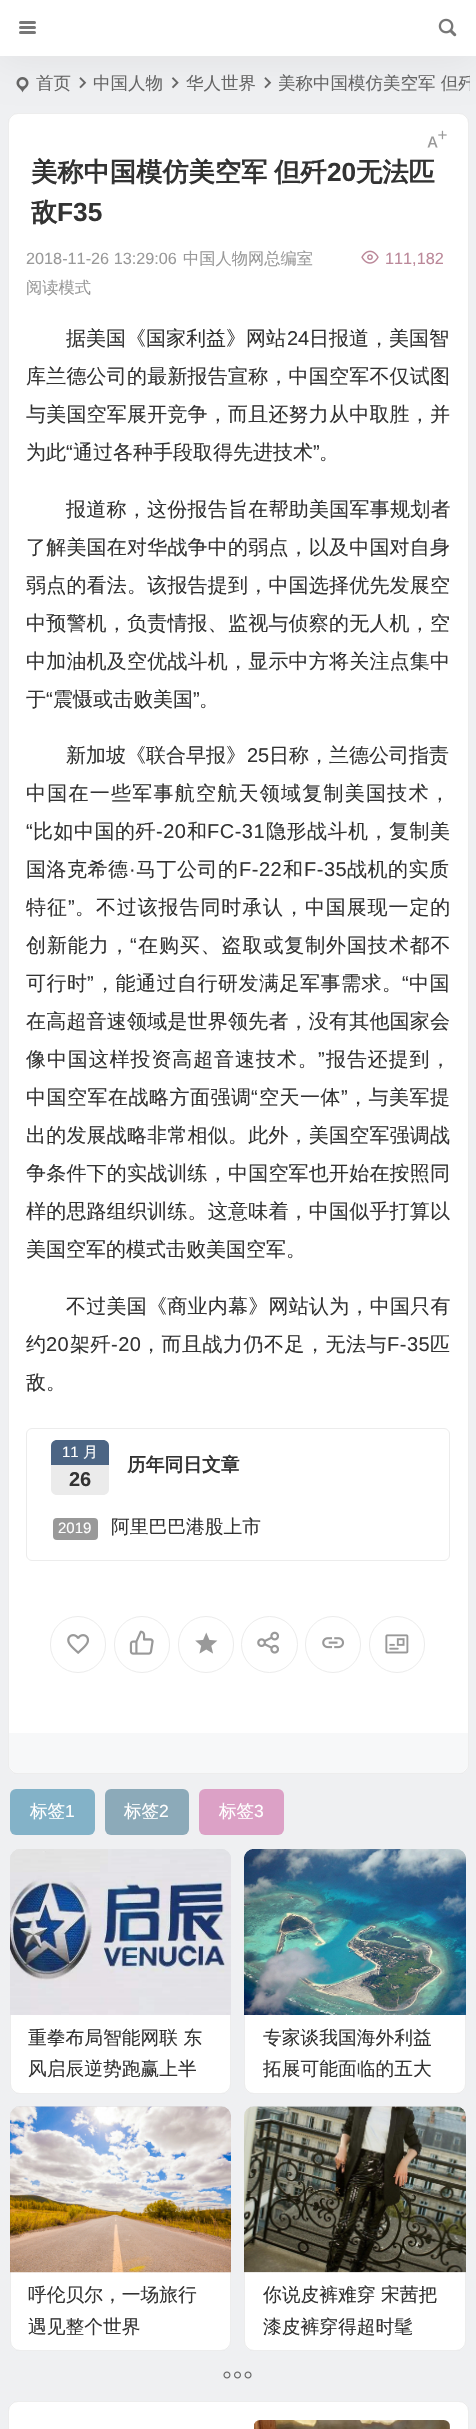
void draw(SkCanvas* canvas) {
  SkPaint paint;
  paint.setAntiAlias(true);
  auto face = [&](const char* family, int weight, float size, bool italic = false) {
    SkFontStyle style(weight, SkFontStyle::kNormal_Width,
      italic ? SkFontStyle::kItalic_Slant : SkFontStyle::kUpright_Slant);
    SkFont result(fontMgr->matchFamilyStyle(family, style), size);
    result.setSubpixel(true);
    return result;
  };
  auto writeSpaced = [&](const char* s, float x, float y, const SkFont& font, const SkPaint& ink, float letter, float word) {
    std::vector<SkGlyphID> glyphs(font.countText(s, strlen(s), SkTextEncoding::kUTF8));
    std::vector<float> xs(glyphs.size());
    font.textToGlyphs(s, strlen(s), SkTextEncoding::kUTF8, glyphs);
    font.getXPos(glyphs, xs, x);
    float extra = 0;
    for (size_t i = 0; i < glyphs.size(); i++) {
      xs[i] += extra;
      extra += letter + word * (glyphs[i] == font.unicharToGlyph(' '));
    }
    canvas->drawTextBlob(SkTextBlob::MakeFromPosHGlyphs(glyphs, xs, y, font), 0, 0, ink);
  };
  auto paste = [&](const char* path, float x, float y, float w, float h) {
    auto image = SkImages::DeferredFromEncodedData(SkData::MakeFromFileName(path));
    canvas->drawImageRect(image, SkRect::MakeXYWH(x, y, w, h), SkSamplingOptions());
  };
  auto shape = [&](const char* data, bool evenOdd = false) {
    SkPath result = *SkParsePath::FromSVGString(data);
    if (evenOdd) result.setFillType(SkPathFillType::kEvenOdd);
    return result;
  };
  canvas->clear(0xffeff0f2);
  paste("img/2.png", 16, 77, 13, 16);
  paste("img/3.png", 79, 77, 8, 12);
  paste("img/4.png", 171, 77, 8, 12);
  paste("img/3.png", 264, 77, 8, 12);
  paint.setColor(0xffffffff);
  canvas->drawRoundRect(SkRect::MakeXYWH(8, 113, 461, 1661), 10, 10, paint);
  paint.setStroke(true);
  paint.setStrokeWidth(1);
  paint.setColor(0x12000000);
  canvas->drawRoundRect(SkRect::MakeXYWH(8.5f, 113.5f, 460, 1660), 9.5f, 9.5f, paint);
  paint.setStroke(false);
  paint.setColor(0x0f000000);
  paint.setMaskFilter(SkMaskFilter::MakeBlur(kNormal_SkBlurStyle, 19));
  canvas->drawRect(SkRect::MakeXYWH(0, 4, 476, 56), paint);
  paint.setMaskFilter(nullptr);
  paint.setColor(0xffffffff);
  canvas->drawRect(SkRect::MakeXYWH(0, 0, 476, 56), paint);
  paint.setColor(0xff777777);
  canvas->drawRoundRect(SkRect::MakeXYWH(19, 26, 17, 3), 1.5f, 1.5f, paint);
  canvas->drawRoundRect(SkRect::MakeXYWH(19, 21, 17, 3), 1.5f, 1.5f, paint);
  canvas->drawRoundRect(SkRect::MakeXYWH(19, 31, 17, 3), 1.5f, 1.5f, paint);
  paste("img/1.png", 438, 18, 19, 19);
  paste("img/5.png", 438, 130, 9, 10);
  paste("img/6.png", 427, 136, 11, 12);
  paste("img/7.png", 361, 250, 18, 14);
  paint.setStroke(true);
  paint.setColor(0xffececec);
  canvas->drawRoundRect(SkRect::MakeXYWH(26.5f, 1428.5f, 423, 132), 5.5f, 5.5f, paint);
  paint.setStroke(false);
  paint.setColor(0xff4c6584);
  canvas->drawPath(shape("M57 1440H103C106.5 1440 109 1442.5 109 1446V1465H51V1446C51 1442.5 53.5 1440 57 1440Z"), paint);
  paint.setColor(0xffebebeb);
  canvas->drawPath(shape("M51 1465H109V1489C109 1492.5 106.5 1495 103 1495H57C53.5 1495 51 1492.5 51 1489Z"), paint);
  paint.setColor(0xff999999);
  canvas->drawRoundRect(SkRect::MakeXYWH(53, 1518, 45, 22), 4, 4, paint);
  paint.setStroke(true);
  paint.setColor(0xffececec);
  canvas->drawRoundRect(SkRect::MakeXYWH(50.5f, 1616.5f, 55, 56), 27.5f, 27.5f, paint);
  paste("img/8.png", 67, 1634, 22, 20);
  canvas->drawRoundRect(SkRect::MakeXYWH(114.5f, 1616.5f, 55, 56), 27.5f, 27.5f, paint);
  paste("img/9.png", 129, 1630, 25, 25);
  canvas->drawRoundRect(SkRect::MakeXYWH(178.5f, 1616.5f, 55, 56), 27.5f, 27.5f, paint);
  paste("img/10.png", 195, 1632, 23, 22);
  canvas->drawCircle(269.5f, 1644.5f, 28, paint);
  paste("img/11.png", 257, 1631, 22, 23);
  canvas->drawRoundRect(SkRect::MakeXYWH(305.5f, 1616.5f, 55, 56), 27.5f, 27.5f, paint);
  paste("img/12.png", 322, 1637, 23, 12);
  canvas->drawRoundRect(SkRect::MakeXYWH(369.5f, 1616.5f, 55, 56), 27.5f, 27.5f, paint);
  paste("img/13.png", 385, 1634, 24, 20);
  paint.setStroke(false);
  paint.setColor(0xfff7f8f9);
  canvas->drawPath(shape("M9 1733H468V1763C468 1768.5 463.5 1773 458 1773H19C13.5 1773 9 1768.5 9 1763Z"), paint);
  paint.setColor(0xff83b2c8);
  canvas->drawRoundRect(SkRect::MakeXYWH(10, 1789, 85, 46), 6, 6, paint);
  paint.setColor(0xff8caab9);
  canvas->drawRoundRect(SkRect::MakeXYWH(105, 1789, 84, 46), 6, 6, paint);
  paint.setColor(0xffdca1c6);
  canvas->drawRoundRect(SkRect::MakeXYWH(199, 1789, 85, 46), 6, 6, paint);
  {
    const SkColor colors[] = {0xffeff0f2, 0xffffffff};
    const float stops[] = {0, 0.5f};
    const SkPoint ends[] = {{121, 1849}, {121, 2094}};
    paint.setShader(SkGradientShader::MakeLinear(ends, colors, stops, 2, SkTileMode::kClamp));
    paint.setAlpha(255);
  }
  canvas->drawRoundRect(SkRect::MakeXYWH(10, 1849, 221, 245), 10, 10, paint);
  paint.setStroke(true);
  paint.setShader(nullptr);
  paint.setColor(0x12000000);
  canvas->drawRoundRect(SkRect::MakeXYWH(10.5f, 1849.5f, 220, 244), 9.5f, 9.5f, paint);
  paste("img/14.png", 10, 1849, 221, 166);
  paint.setStroke(false);
  {
    const SkColor colors[] = {0xffeff0f2, 0xffffffff};
    const float stops[] = {0, 0.5f};
    const SkPoint ends[] = {{355, 1849}, {355, 2094}};
    paint.setShader(SkGradientShader::MakeLinear(ends, colors, stops, 2, SkTileMode::kClamp));
    paint.setAlpha(255);
  }
  canvas->drawRoundRect(SkRect::MakeXYWH(244, 1849, 222, 245), 10, 10, paint);
  paint.setStroke(true);
  paint.setShader(nullptr);
  paint.setColor(0x12000000);
  canvas->drawRoundRect(SkRect::MakeXYWH(244.5f, 1849.5f, 221, 244), 9.5f, 9.5f, paint);
  paste("img/15.png", 244, 1849, 222, 166);
  paint.setStroke(false);
  {
    const SkColor colors[] = {0xffeff0f2, 0xffffffff};
    const float stops[] = {0, 0.5f};
    const SkPoint ends[] = {{121, 2106}, {121, 2351}};
    paint.setShader(SkGradientShader::MakeLinear(ends, colors, stops, 2, SkTileMode::kClamp));
    paint.setAlpha(255);
  }
  canvas->drawRoundRect(SkRect::MakeXYWH(10, 2106, 221, 245), 10, 10, paint);
  paint.setStroke(true);
  paint.setShader(nullptr);
  paint.setColor(0x12000000);
  canvas->drawRoundRect(SkRect::MakeXYWH(10.5f, 2106.5f, 220, 244), 9.5f, 9.5f, paint);
  paste("img/16.png", 10, 2106, 221, 167);
  paint.setStroke(false);
  {
    const SkColor colors[] = {0xffeff0f2, 0xffffffff};
    const float stops[] = {0, 0.5f};
    const SkPoint ends[] = {{355, 2106}, {355, 2351}};
    paint.setShader(SkGradientShader::MakeLinear(ends, colors, stops, 2, SkTileMode::kClamp));
    paint.setAlpha(255);
  }
  canvas->drawRoundRect(SkRect::MakeXYWH(244, 2106, 222, 245), 10, 10, paint);
  paint.setStroke(true);
  paint.setShader(nullptr);
  paint.setColor(0x12000000);
  canvas->drawRoundRect(SkRect::MakeXYWH(244.5f, 2106.5f, 221, 244), 9.5f, 9.5f, paint);
  paste("img/17.png", 244, 2106, 222, 167);
  paste("img/18.png", 223, 2371, 29, 8);
  paint.setStroke(false);
  paint.setColor(0xffffffff);
  canvas->drawRoundRect(SkRect::MakeXYWH(8, 2401, 461, 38), 10, 10, paint);
  paint.setStroke(true);
  paint.setColor(0x12000000);
  canvas->drawRoundRect(SkRect::MakeXYWH(8.5f, 2401.5f, 460, 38), 9.5f, 9.5f, paint);
  paste("img/19.png", 254, 2420, 196, 9);
  auto f0 = face("WenQuanYi Zen Hei", 500, 17.5f);
  paint.setStroke(false);
  paint.setColor(0xff666666);
  {
    const struct { const char* s; float x, y; } items[] = {
      {"首页", 36, 89},
      {"中国人物", 93, 89},
      {"华人世界", 186, 89},
    };
    for (auto [s, x, y] : items) {
      canvas->drawString(s, x, y, f0, paint);
    }
  }
  canvas->save();
  canvas->clipRect(SkRect::MakeXYWH(6, 56, 464, 57));
  canvas->drawString("美称中国模仿美空军 但歼", 278, 89, f0, paint);
  canvas->restore();
  auto f1 = face("WenQuanYi Zen Hei", 700, 26.25f);
  paint.setColor(0xff333333);
  writeSpaced("美称中国模仿美空军 但歼", 31, 181, f1, paint, 0, -1);
  auto f2 = face("Liberation Sans", 700, 26.25f);
  canvas->drawString("20", 327, 181, f2, paint);
  canvas->drawString("无法匹", 356, 181, f1, paint);
  canvas->drawString("敌", 31, 221, f1, paint);
  canvas->drawString("F35", 57, 221, f2, paint);
  auto f3 = face("Liberation Sans", 400, 16.25f);
  paint.setColor(0xff999999);
  canvas->drawString("2018-11-26 13:29:06", 26, 264, f3, paint);
  auto f4 = face("WenQuanYi Zen Hei", 500, 16.25f);
  canvas->drawString("中国人物网总编室", 183, 264, f4, paint);
  paint.setColor(0xffbb8899);
  canvas->drawString("111,182", 385, 264, f3, paint);
  paint.setColor(0xff999999);
  canvas->drawString("阅读模式", 26, 293, f4, paint);
  auto f5 = face("WenQuanYi Zen Hei", 500, 20);
  paint.setColor(0xff333333);
  canvas->drawString("据美国《国家利益》网站", 66, 345, f5, paint);
  auto f6 = face("Liberation Sans", 400, 20);
  canvas->drawString("24", 287, 345, f6, paint);
  canvas->drawString("日报道，美国智", 309, 345, f5, paint);
  writeSpaced("库兰德公司的最新报告宣称，中国空军不仅试图", 26, 383, f5, paint, 0.2f, 0);
  writeSpaced("与美国空军展开竞争，而且还努力从中取胜，并", 26, 421, f5, paint, 0.2f, 0);
  canvas->drawString("为此", 26, 459, f5, paint);
  canvas->drawString("“", 66, 459, f6, paint);
  canvas->drawString("通过各种手段取得先进技术", 73, 459, f5, paint);
  canvas->drawString("”", 313, 459, f6, paint);
  canvas->drawString("。", 319, 459, f5, paint);
  writeSpaced("报道称，这份报告旨在帮助美国军事规划者", 66, 516, f5, paint, 0.25f, 0);
  {
    const struct { const char* s; float x, y; } items[] = {
      {"了解美国在对华战争中的弱点，以及中国对自身", 26, 554},
      {"弱点的看法。该报告提到，中国选择优先发展空", 26, 592},
      {"中预警机，负责情报、监视与侦察的无人机，空", 26, 630},
      {"中加油机及空优战斗机，显示中方将关注点集中", 26, 668},
    };
    for (auto [s, x, y] : items) {
      writeSpaced(s, x, y, f5, paint, 0.2f, 0);
    }
  }
  canvas->drawString("于", 26, 706, f5, paint);
  canvas->drawString("“", 46, 706, f6, paint);
  canvas->drawString("震慑或击败美国", 53, 706, f5, paint);
  canvas->drawString("”", 193, 706, f6, paint);
  canvas->drawString("。", 199, 706, f5, paint);
  canvas->drawString("新加坡《联合早报》", 66, 762, f5, paint);
  canvas->drawString("25", 247, 762, f6, paint);
  canvas->drawString("日称，兰德公司指责", 269, 762, f5, paint);
  writeSpaced("中国在一些军事航空航天领域复制美国技术，", 26, 800, f5, paint, 1.25f, 0);
  writeSpaced("“", 26, 838, f6, paint, 0.5f, 0);
  writeSpaced("比如中国的歼", 33, 838, f5, paint, 0.5f, 0);
  writeSpaced("-20", 156, 838, f6, paint, 0.5f, 0);
  writeSpaced("和", 187, 838, f5, paint, 0.5f, 0);
  writeSpaced("FC-31", 207, 838, f6, paint, 0.5f, 0);
  writeSpaced("隐形战斗机，复制美", 266, 838, f5, paint, 0.5f, 0);
  writeSpaced("国洛克希德", 26, 876, f5, paint, 0.5f, 0);
  writeSpaced("·", 129, 876, f6, paint, 0.5f, 0);
  writeSpaced("马丁公司的", 136, 876, f5, paint, 0.5f, 0);
  writeSpaced("F-22", 239, 876, f6, paint, 0.5f, 0);
  writeSpaced("和", 283, 876, f5, paint, 0.5f, 0);
  writeSpaced("F-35", 304, 876, f6, paint, 0.5f, 0);
  writeSpaced("战机的实质", 347, 876, f5, paint, 0.5f, 0);
  writeSpaced("特征", 26, 914, f5, paint, 0.9f, 0);
  writeSpaced("”", 68, 914, f6, paint, 0.9f, 0);
  writeSpaced("。不过该报告同时承认，中国展现一定的", 75, 914, f5, paint, 0.9f, 0);
  writeSpaced("创新能力，", 26, 952, f5, paint, 0.9f, 0);
  writeSpaced("“", 130, 952, f6, paint, 0.9f, 0);
  writeSpaced("在购买、盗取或复制外国技术都不", 138, 952, f5, paint, 0.9f, 0);
  writeSpaced("可行时", 26, 990, f5, paint, 0.5f, 0);
  writeSpaced("”", 87, 990, f6, paint, 0.5f, 0);
  writeSpaced("，能通过自行研发满足军事需求。", 95, 990, f5, paint, 0.5f, 0);
  writeSpaced("“", 402, 990, f6, paint, 0.5f, 0);
  writeSpaced("中国", 409, 990, f5, paint, 0.5f, 0);
  writeSpaced("在高超音速领域是世界领先者，没有其他国家会", 26, 1028, f5, paint, 0.2f, 0);
  writeSpaced("像中国这样投资高超音速技术。", 26, 1066, f5, paint, 0.9f, 0);
  writeSpaced("”", 318, 1066, f6, paint, 0.9f, 0);
  writeSpaced("报告还提到，", 326, 1066, f5, paint, 0.9f, 0);
  writeSpaced("中国空军在战略方面强调", 26, 1104, f5, paint, 0.5f, 0);
  writeSpaced("“", 251, 1104, f6, paint, 0.5f, 0);
  writeSpaced("空天一体", 259, 1104, f5, paint, 0.5f, 0);
  writeSpaced("”", 341, 1104, f6, paint, 0.5f, 0);
  writeSpaced("，与美军提", 348, 1104, f5, paint, 0.5f, 0);
  {
    const struct { const char* s; float x, y; } items[] = {
      {"出的发展战略非常相似。此外，美国空军强调战", 26, 1142},
      {"争条件下的实战训练，中国空军也开始在按照同", 26, 1180},
      {"样的思路组织训练。这意味着，中国似乎打算以", 26, 1218},
    };
    for (auto [s, x, y] : items) {
      writeSpaced(s, x, y, f5, paint, 0.2f, 0);
    }
  }
  canvas->drawString("美国空军的模式击败美国空军。", 26, 1256, f5, paint);
  writeSpaced("不过美国《商业内幕》网站认为，中国只有", 66, 1313, f5, paint, 0.25f, 0);
  writeSpaced("约", 26, 1351, f5, paint, 0.5f, 0);
  writeSpaced("20", 46, 1351, f6, paint, 0.5f, 0);
  writeSpaced("架歼", 70, 1351, f5, paint, 0.5f, 0);
  writeSpaced("-20", 111, 1351, f6, paint, 0.5f, 0);
  writeSpaced("，而且战力仍不足，无法与", 141, 1351, f5, paint, 0.5f, 0);
  writeSpaced("F-35", 387, 1351, f6, paint, 0.5f, 0);
  writeSpaced("匹", 430, 1351, f5, paint, 0.5f, 0);
  canvas->drawString("敌。", 26, 1389, f5, paint);
  auto f7 = face("Liberation Sans", 400, 15);
  paint.setColor(0xffffffff);
  canvas->drawString("11", 62, 1457, f7, paint);
  auto f8 = face("WenQuanYi Zen Hei", 500, 15);
  canvas->drawString("月", 83, 1457, f8, paint);
  auto f9 = face("Liberation Sans", 700, 20);
  paint.setColor(0xff333333);
  canvas->drawString("26", 69, 1486, f9, paint);
  auto f10 = face("WenQuanYi Zen Hei", 700, 18.75f);
  canvas->drawString("历年同日文章", 127, 1471, f10, paint);
  paint.setColor(0xffffffff);
  canvas->drawString("2019", 58, 1533, f7, paint);
  auto f11 = face("WenQuanYi Zen Hei", 500, 18.75f);
  paint.setColor(0xff333333);
  canvas->drawString("阿里巴巴港股上市", 111, 1533, f11, paint);
  paint.setColor(0xffffffff);
  canvas->drawString("标签", 30, 1817, f0, paint);
  auto f12 = face("Liberation Sans", 400, 17.5f);
  canvas->drawString("1", 65, 1817, f12, paint);
  canvas->drawString("标签", 124, 1817, f0, paint);
  canvas->drawString("2", 159, 1817, f12, paint);
  canvas->drawString("标签", 219, 1817, f0, paint);
  canvas->drawString("3", 254, 1817, f12, paint);
  paint.setColor(0xff333333);
  {
    const struct { const char* s; float x, y; } items[] = {
      {"重拳布局智能网联 东", 28, 2044},
      {"风启辰逆势跑赢上半", 28, 2075},
      {"专家谈我国海外利益", 263, 2044},
      {"拓展可能面临的五大", 263, 2075},
      {"呼伦贝尔，一场旅行", 28, 2301},
      {"遇见整个世界", 28, 2333},
      {"你说皮裤难穿 宋茜把", 263, 2301},
      {"漆皮裤穿得超时髦", 263, 2333},
    };
    for (auto [s, x, y] : items) {
      canvas->drawString(s, x, y, f11, paint);
    }
  }
}
